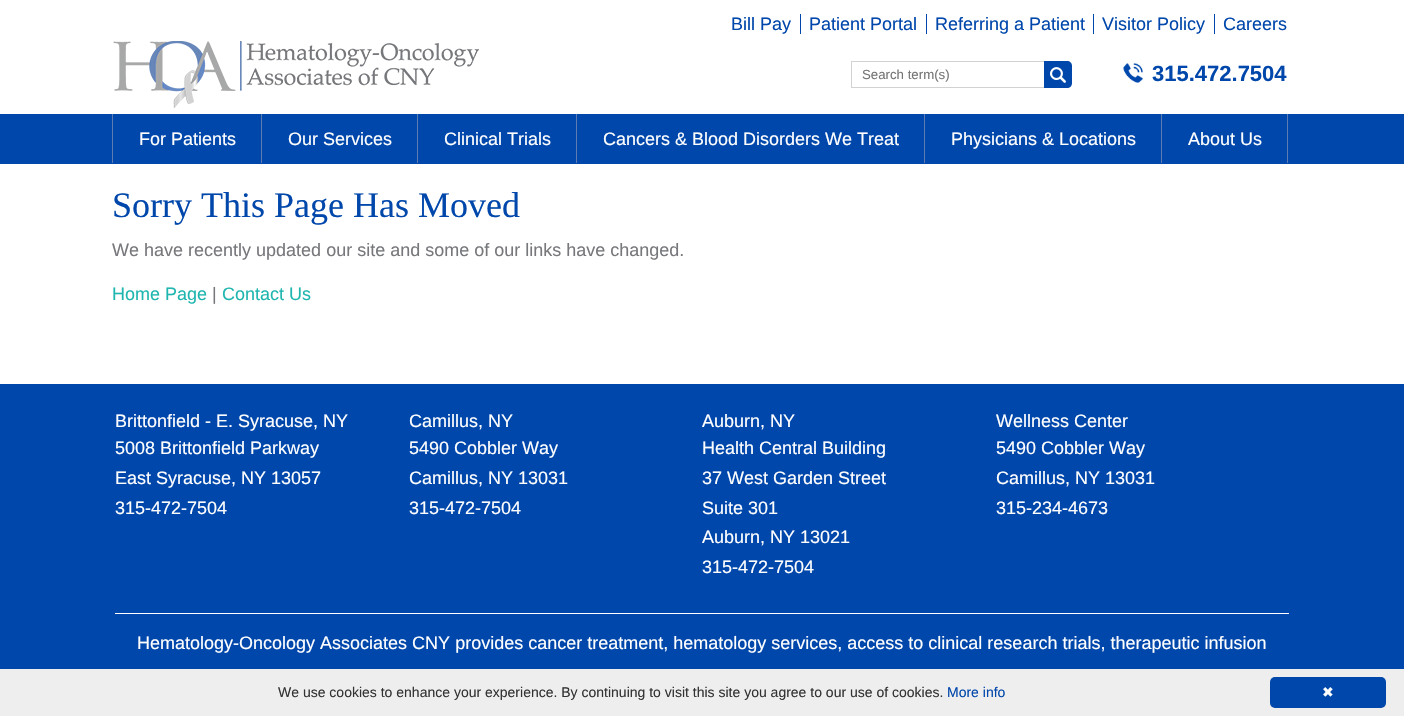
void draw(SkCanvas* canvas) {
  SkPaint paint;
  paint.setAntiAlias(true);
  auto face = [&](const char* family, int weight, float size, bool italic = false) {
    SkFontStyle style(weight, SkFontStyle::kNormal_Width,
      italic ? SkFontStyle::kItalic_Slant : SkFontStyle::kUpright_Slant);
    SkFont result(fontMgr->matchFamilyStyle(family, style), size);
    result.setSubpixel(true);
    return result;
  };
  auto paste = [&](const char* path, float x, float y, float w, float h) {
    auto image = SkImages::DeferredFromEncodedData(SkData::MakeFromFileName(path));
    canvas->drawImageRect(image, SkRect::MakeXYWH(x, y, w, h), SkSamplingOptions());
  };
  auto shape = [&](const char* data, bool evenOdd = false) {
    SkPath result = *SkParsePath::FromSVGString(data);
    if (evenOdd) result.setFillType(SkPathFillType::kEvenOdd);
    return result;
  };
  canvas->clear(0xffffffff);
  {
    const struct { float x, y, w, h; SkColor color; } items[] = {
      {800, 14, 1, 20, 0xff0047ab},
      {926, 14, 1, 20, 0xff0047ab},
      {1093, 14, 1, 20, 0xff0047ab},
      {1214, 14, 1, 20, 0xff0047ab},
    };
    for (auto [x, y, w, h, color] : items) {
      paint.setColor(color);
      canvas->drawRect(SkRect::MakeXYWH(x, y, w, h), paint);
    }
  }
  paste("img/1.png", 113, 41, 366, 67);
  {
    const struct { float x, y, w, h; SkColor color; } items[] = {
      {851, 61, 193, 1, 0xffd2d2d2},
      {851, 87, 193, 1, 0xffd2d2d2},
      {851, 61, 1, 27, 0xffd2d2d2},
    };
    for (auto [x, y, w, h, color] : items) {
      paint.setColor(color);
      canvas->drawRect(SkRect::MakeXYWH(x, y, w, h), paint);
    }
  }
  paint.setColor(0xff0047ab);
  canvas->drawPath(shape("M1044 61H1067C1070 61 1072 63 1072 66V83C1072 86 1070 88 1067 88H1044Z"), paint);
  paste("img/2.png", 1050, 67, 16, 16);
  paste("img/3.png", 1123, 63, 21, 20);
  {
    const struct { float x, y, w, h; SkColor color; } items[] = {
      {0, 114, 1404, 50, 0xff0047ab},
      {112, 114, 1, 49, 0xff5d7bb0},
      {261, 114, 1, 49, 0xff5d7bb0},
      {417, 114, 1, 49, 0xff5d7bb0},
      {576, 114, 1, 49, 0xff5d7bb0},
      {924, 114, 1, 49, 0xff5d7bb0},
      {1287, 114, 1, 49, 0xff5d7bb0},
      {1161, 114, 1, 49, 0xff5d7bb0},
      {0, 384, 1404, 285, 0xff0047ab},
      {115, 613, 1174, 1, 0xffffffff},
      {0, 669, 1404, 47, 0xffeeeeee},
    };
    for (auto [x, y, w, h, color] : items) {
      paint.setColor(color);
      canvas->drawRect(SkRect::MakeXYWH(x, y, w, h), paint);
    }
  }
  paint.setColor(0xff0047ab);
  canvas->drawRoundRect(SkRect::MakeXYWH(1270, 677, 116, 31), 5, 5, paint);
  auto f0 = face("Liberation Sans", 400, 18);
  {
    const struct { const char* s; float x, y; } items[] = {
      {"Bill Pay", 731, 30},
      {"Patient Portal", 809, 30},
      {"Referring a Patient", 935, 30},
      {"Visitor Policy", 1102, 30},
      {"Careers", 1223, 30},
    };
    for (auto [s, x, y] : items) {
      canvas->drawString(s, x, y, f0, paint);
    }
  }
  auto f1 = face("Liberation Sans", 400, 13.25f);
  paint.setColor(0xff757575);
  canvas->drawString("Search term(s)", 862, 79, f1, paint);
  auto f2 = face("Liberation Sans", 700, 22);
  paint.setColor(0xff0047ab);
  canvas->drawString("315.472.7504", 1152, 81, f2, paint);
  paint.setColor(0xffffffff);
  {
    const struct { const char* s; float x, y; } items[] = {
      {"For Patients", 139, 145},
      {"Our Services", 288, 145},
      {"Clinical Trials", 444, 145},
      {"Cancers & Blood Disorders We Treat", 603, 145},
      {"Physicians & Locations", 951, 145},
      {"About Us", 1188, 145},
    };
    for (auto [s, x, y] : items) {
      canvas->drawString(s, x, y, f0, paint);
    }
  }
  auto f3 = face("Liberation Serif", 400, 36);
  paint.setColor(0xff0047ab);
  canvas->drawString("Sorry This Page Has Moved", 112, 217, f3, paint);
  paint.setColor(0xff77787c);
  canvas->drawString("We have recently updated our site and some of our links have changed.", 112, 256, f0, paint);
  paint.setColor(0xff1fb6af);
  canvas->drawString("Home Page", 112, 300, f0, paint);
  paint.setColor(0xff77787c);
  canvas->drawString("|", 212, 300, f0, paint);
  paint.setColor(0xff1fb6af);
  canvas->drawString("Contact Us", 222, 300, f0, paint);
  paint.setColor(0xffffffff);
  {
    const struct { const char* s; float x, y; } items[] = {
      {"Brittonfield - E. Syracuse, NY", 115, 427},
      {"5008 Brittonfield Parkway", 115, 454},
      {"East Syracuse, NY 13057", 115, 484},
      {"315-472-7504", 115, 514},
      {"Camillus, NY", 409, 427},
      {"5490 Cobbler Way", 409, 454},
      {"Camillus, NY 13031", 409, 484},
      {"315-472-7504", 409, 514},
      {"Auburn, NY", 702, 427},
      {"Health Central Building", 702, 454},
      {"37 West Garden Street", 702, 484},
      {"Suite 301", 702, 514},
      {"Auburn, NY 13021", 702, 543},
      {"315-472-7504", 702, 573},
      {"Wellness Center", 996, 427},
      {"5490 Cobbler Way", 996, 454},
      {"Camillus, NY 13031", 996, 484},
      {"315-234-4673", 996, 514},
      {"Hematology-Oncology Associates CNY provides cancer treatment, hematology services, access to clinical research trials, therapeutic infusion", 137, 649},
    };
    for (auto [s, x, y] : items) {
      canvas->drawString(s, x, y, f0, paint);
    }
  }
  auto f4 = face("Liberation Sans", 400, 14);
  paint.setColor(0xff333333);
  canvas->drawString("We use cookies to enhance your experience. By continuing to visit this site you agree to our use of cookies.", 278, 697, f4, paint);
  paint.setColor(0xff0047ab);
  canvas->drawString("More info", 947, 697, f4, paint);
  auto f5 = face("DejaVu Sans", 400, 14);
  paint.setColor(0xffffffff);
  canvas->drawString("✖", 1322, 697, f5, paint);
}
